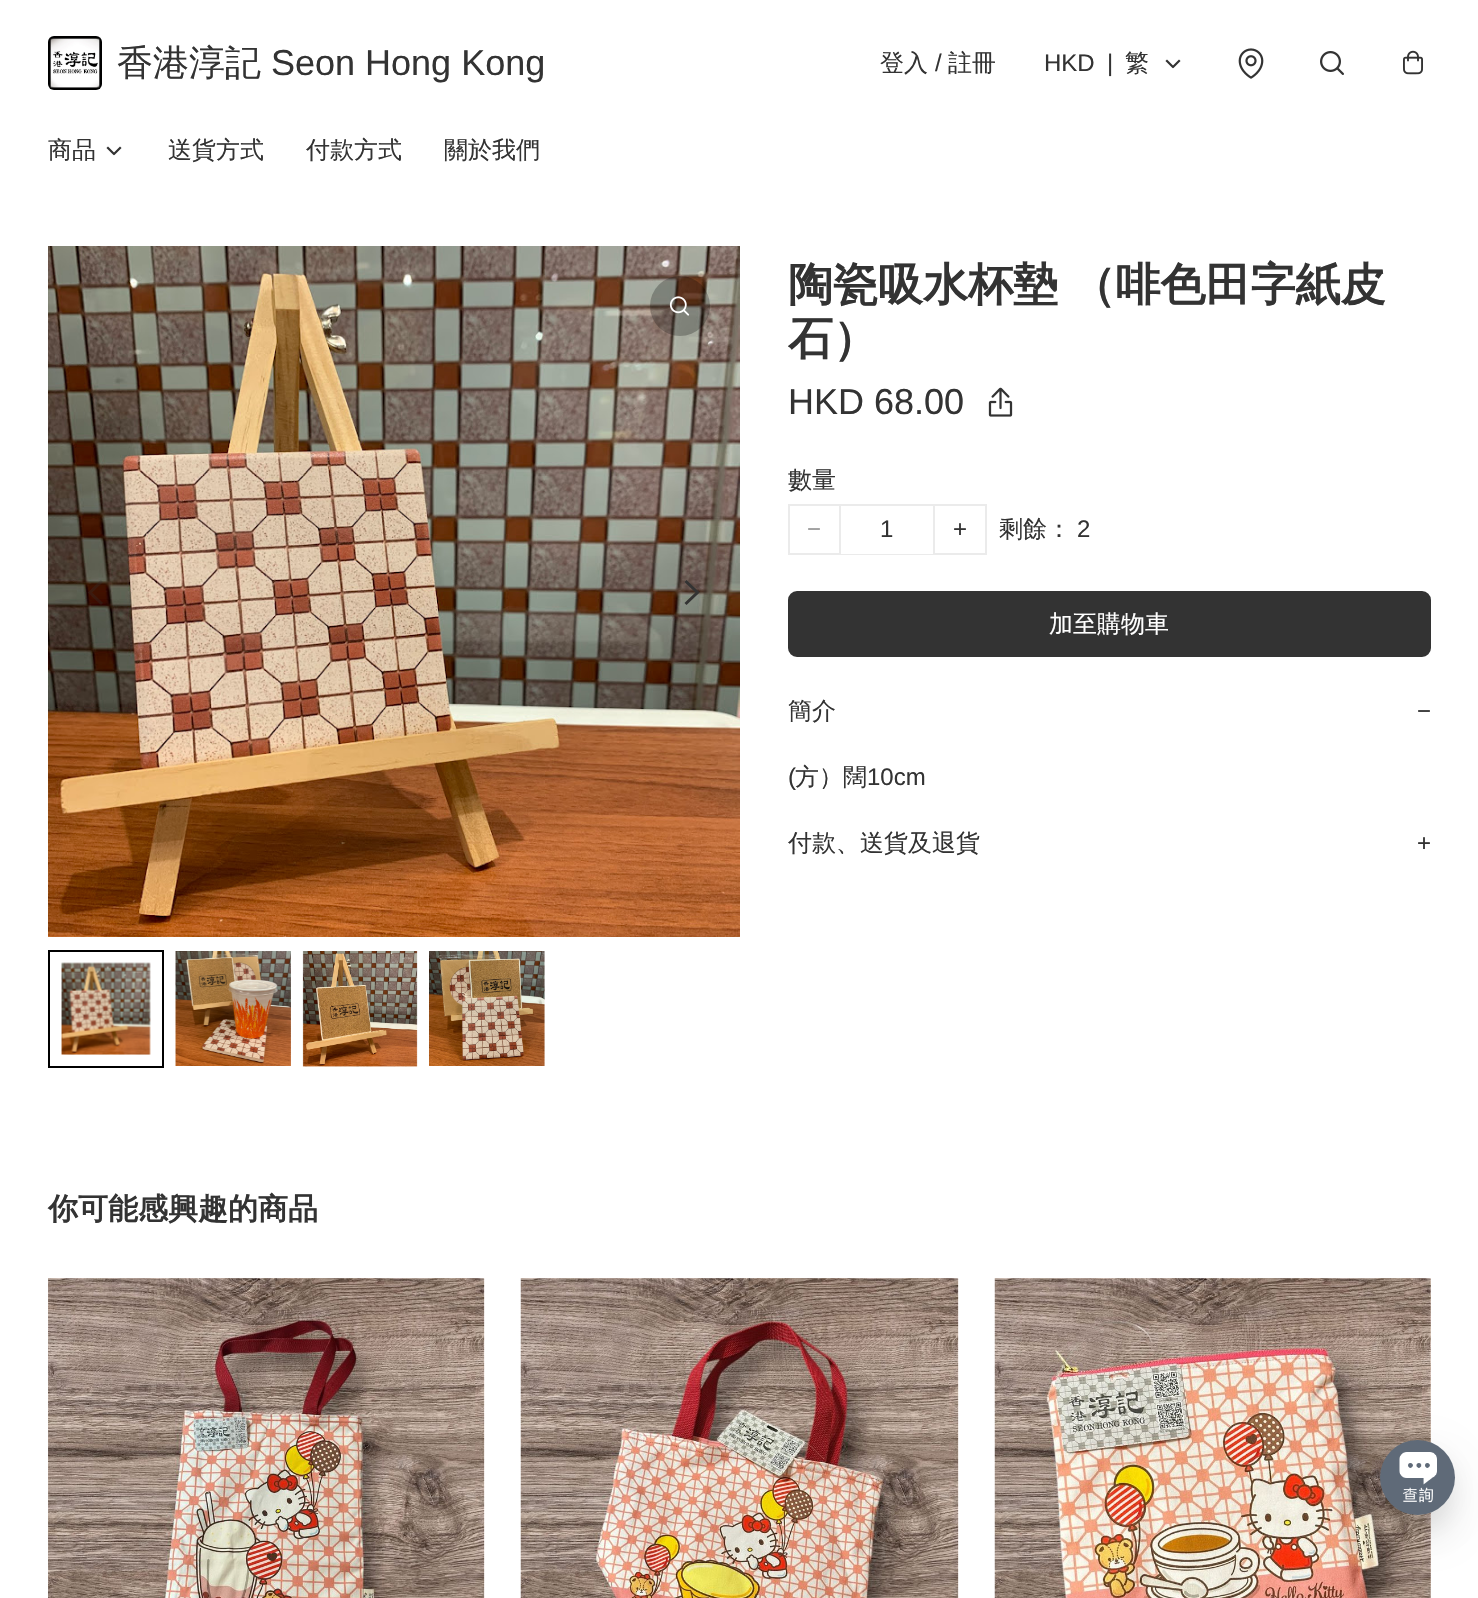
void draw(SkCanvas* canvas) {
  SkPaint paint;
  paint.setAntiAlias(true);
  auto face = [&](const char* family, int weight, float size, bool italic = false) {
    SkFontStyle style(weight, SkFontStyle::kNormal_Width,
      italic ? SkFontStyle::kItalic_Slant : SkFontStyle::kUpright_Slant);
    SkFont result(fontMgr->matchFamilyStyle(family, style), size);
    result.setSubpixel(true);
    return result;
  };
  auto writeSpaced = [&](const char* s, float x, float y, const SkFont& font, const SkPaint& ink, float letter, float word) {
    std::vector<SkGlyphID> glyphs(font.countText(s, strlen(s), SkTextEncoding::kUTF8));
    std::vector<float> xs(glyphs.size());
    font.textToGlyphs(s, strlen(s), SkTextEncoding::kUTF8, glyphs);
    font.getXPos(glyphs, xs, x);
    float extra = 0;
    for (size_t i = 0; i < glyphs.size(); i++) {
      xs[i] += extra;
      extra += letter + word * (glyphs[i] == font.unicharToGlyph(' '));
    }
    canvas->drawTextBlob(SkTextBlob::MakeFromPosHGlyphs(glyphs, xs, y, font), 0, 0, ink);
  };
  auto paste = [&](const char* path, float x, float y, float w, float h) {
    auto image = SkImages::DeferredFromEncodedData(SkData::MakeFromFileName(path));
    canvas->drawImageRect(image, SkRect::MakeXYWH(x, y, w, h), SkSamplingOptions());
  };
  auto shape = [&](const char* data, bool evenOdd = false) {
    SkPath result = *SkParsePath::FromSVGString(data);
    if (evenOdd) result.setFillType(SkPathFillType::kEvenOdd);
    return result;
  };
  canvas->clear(0xffffffff);
  paste("img/1.png", 48, 36, 54, 54);
  paint.setStroke(true);
  paint.setStrokeWidth(2.2f);
  paint.setStrokeCap(SkPaint::kSquare_Cap);
  paint.setStrokeJoin(SkPaint::kRound_Join);
  paint.setColor(0xff333333);
  canvas->drawPath(shape("M1167 61L1173 67L1179 61"), paint);
  paste("img/2.png", 1238, 48, 26, 31);
  paste("img/3.png", 1320, 51, 24, 24);
  paste("img/4.png", 1403, 50, 20, 25);
  canvas->drawPath(shape("M108 148L114 154L120 148"), paint);
  paste("img/5.png", 48, 246, 692, 691);
  paint.setStroke(false);
  paint.setColor(0x40000000);
  canvas->drawCircle(680, 306, 30, paint);
  paste("img/6.png", 669, 296, 21, 20);
  paint.setStroke(true);
  paint.setStrokeWidth(3);
  paint.setStrokeCap(SkPaint::kButt_Cap);
  paint.setStrokeJoin(SkPaint::kMiter_Join);
  paint.setColor(0x4d333333);
  canvas->drawPath(shape("M102 581L90 592.5L102 604"), paint);
  paint.setColor(0xff333333);
  canvas->drawPath(shape("M685.5 581L697.5 592.5L685.5 604"), paint);
  paint.setStrokeWidth(2);
  paint.setColor(0xff000000);
  canvas->drawRect(SkRect::MakeXYWH(49, 951, 114, 116), paint);
  paste("img/7.png", 61, 962, 90, 93);
  paste("img/8.png", 175, 951, 116, 115);
  paste("img/9.png", 302, 951, 116, 116);
  paste("img/10.png", 429, 951, 116, 115);
  paste("img/11.png", 988, 387, 25, 30);
  paint.setColor(0xffebebeb);
  canvas->drawRect(SkRect::MakeXYWH(789, 505, 197, 49), paint);
  paint.setStroke(false);
  {
    const struct { float x, y, w, h; SkColor color; } items[] = {
      {841, 553, 92, 1, 0xffffffff},
      {933, 506, 2, 48, 0xffebebeb},
      {839, 506, 2, 48, 0xffebebeb},
    };
    for (auto [x, y, w, h, color] : items) {
      paint.setColor(color);
      canvas->drawRect(SkRect::MakeXYWH(x, y, w, h), paint);
    }
  }
  paint.setColor(0xff333333);
  canvas->drawRoundRect(SkRect::MakeXYWH(789.5f, 592.5f, 640, 63), 7.5f, 7.5f, paint);
  paint.setStroke(true);
  paint.setStrokeWidth(3);
  canvas->drawRoundRect(SkRect::MakeXYWH(789.5f, 592.5f, 640, 63), 7.5f, 7.5f, paint);
  paste("img/12.png", 48, 1278, 437, 320);
  paste("img/13.png", 520, 1278, 439, 320);
  paste("img/14.png", 994, 1278, 437, 320);
  paint.setStroke(false);
  paint.setColor(0x4d000000);
  paint.setMaskFilter(SkMaskFilter::MakeBlur(kNormal_SkBlurStyle, 22.5f));
  canvas->drawRoundRect(SkRect::MakeXYWH(1395, 1478, 45, 45), 22.5f, 22.5f, paint);
  paint.setMaskFilter(nullptr);
  paint.setColor(0x0d000000);
  paint.setMaskFilter(SkMaskFilter::MakeBlur(kNormal_SkBlurStyle, 15));
  canvas->drawRoundRect(SkRect::MakeXYWH(1380, 1448, 75, 75), 37.5f, 37.5f, paint);
  paint.setMaskFilter(nullptr);
  paint.setColor(0xff5f6a78);
  canvas->drawCircle(1417.5f, 1477.5f, 37.5f, paint);
  paste("img/15.png", 1399, 1452, 38, 51);
  auto f0 = face("WenQuanYi Zen Hei", 500, 36);
  paint.setColor(0xff333333);
  canvas->drawString("香港淳記", 117, 75, f0, paint);
  auto f1 = face("Liberation Sans", 400, 36);
  canvas->drawString("Seon Hong Kong", 271, 75, f1, paint);
  auto f2 = face("WenQuanYi Zen Hei", 500, 24);
  canvas->drawString("登入", 880, 71, f2, paint);
  auto f3 = face("Liberation Sans", 400, 24);
  canvas->drawString("/", 935, 71, f3, paint);
  canvas->drawString("註冊", 948, 71, f2, paint);
  canvas->drawString("HKD", 1044, 71, f3, paint);
  canvas->drawString("|", 1107, 71, f3, paint);
  {
    const struct { const char* s; float x, y; } items[] = {
      {"繁", 1125, 71},
      {"商品", 48, 158},
      {"送貨方式", 168, 158},
      {"付款方式", 306, 158},
      {"關於我們", 444, 158},
    };
    for (auto [s, x, y] : items) {
      canvas->drawString(s, x, y, f2, paint);
    }
  }
  auto f4 = face("WenQuanYi Zen Hei", 700, 45);
  writeSpaced("陶瓷吸水杯墊 （啡色田字紙皮", 788, 300, f4, paint, 0, -1);
  canvas->drawString("石）", 788, 354, f4, paint);
  canvas->drawString("HKD 68.00", 788, 414, f1, paint);
  canvas->drawString("數量", 788, 488, f2, paint);
  paint.setColor(0xff999999);
  canvas->drawString("−", 807, 537, f3, paint);
  paint.setColor(0xff333333);
  canvas->drawString("1", 880, 537, f3, paint);
  canvas->drawString("+", 953, 537, f3, paint);
  canvas->drawString("剩餘：", 999, 537, f2, paint);
  canvas->drawString("2", 1077, 537, f3, paint);
  paint.setColor(0xffffffff);
  canvas->drawString("加至購物車", 1049, 632, f2, paint);
  paint.setColor(0xff333333);
  canvas->drawString("簡介", 788, 719, f2, paint);
  canvas->drawString("−", 1417, 719, f3, paint);
  canvas->drawString("(", 788, 785, f3, paint);
  canvas->drawString("方）闊", 795, 785, f2, paint);
  canvas->drawString("10cm", 867, 785, f3, paint);
  canvas->drawString("付款、送貨及退貨", 788, 851, f2, paint);
  canvas->drawString("+", 1417, 851, f3, paint);
  auto f5 = face("WenQuanYi Zen Hei", 700, 30);
  canvas->drawString("你可能感興趣的商品", 48, 1219, f5, paint);
}
